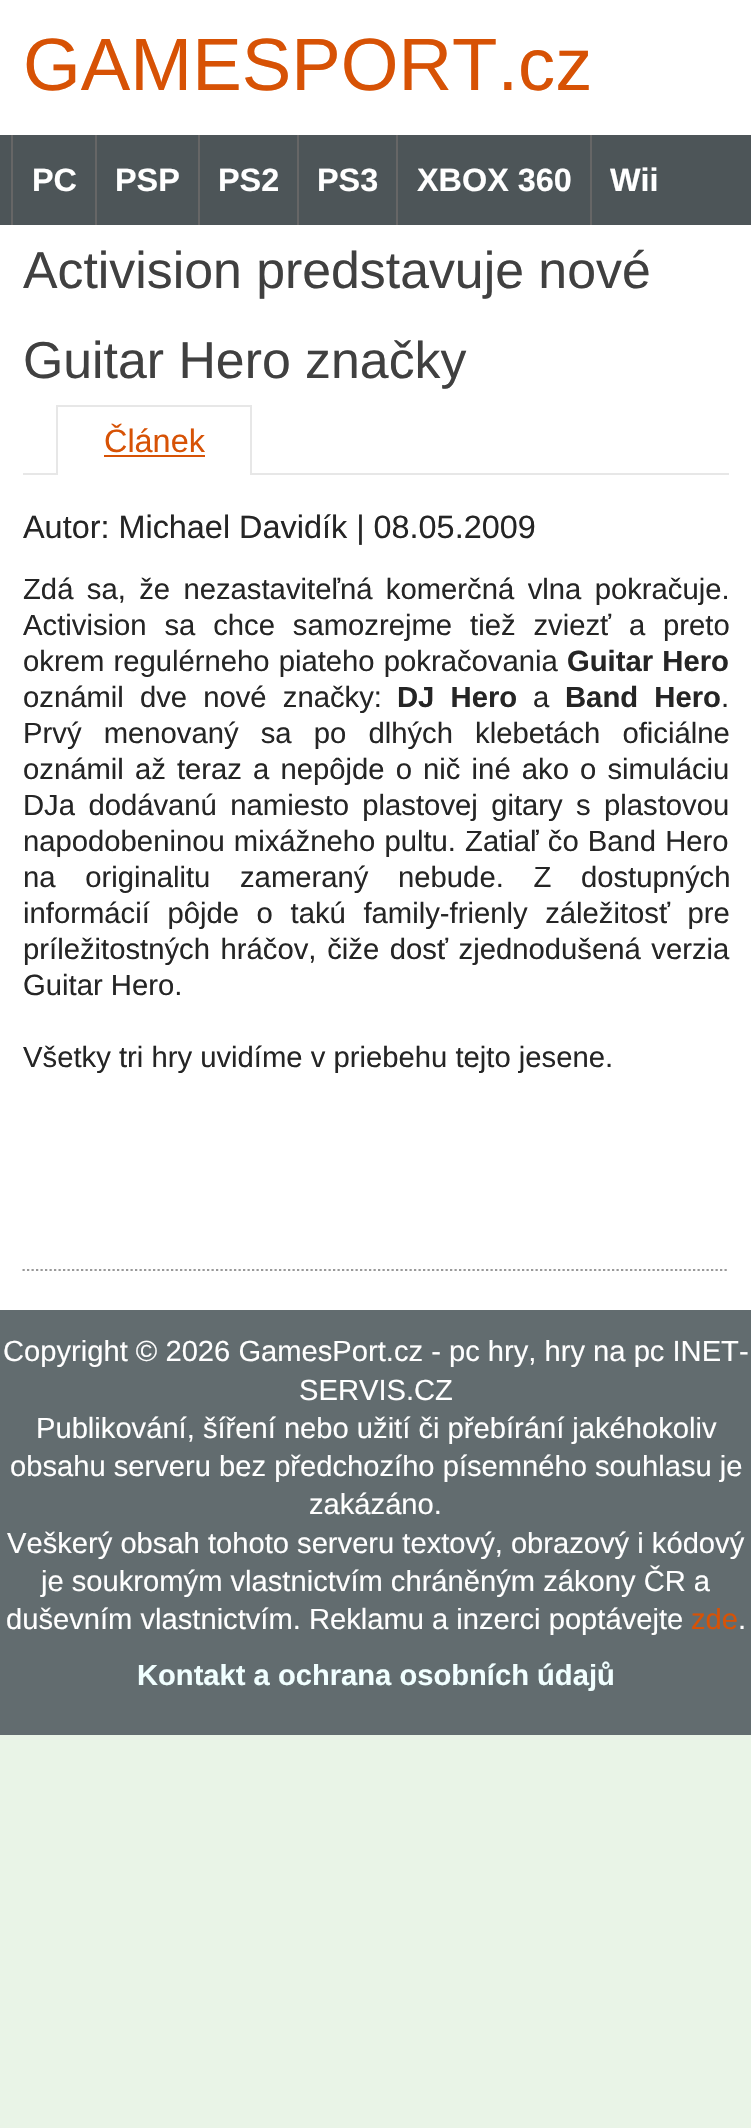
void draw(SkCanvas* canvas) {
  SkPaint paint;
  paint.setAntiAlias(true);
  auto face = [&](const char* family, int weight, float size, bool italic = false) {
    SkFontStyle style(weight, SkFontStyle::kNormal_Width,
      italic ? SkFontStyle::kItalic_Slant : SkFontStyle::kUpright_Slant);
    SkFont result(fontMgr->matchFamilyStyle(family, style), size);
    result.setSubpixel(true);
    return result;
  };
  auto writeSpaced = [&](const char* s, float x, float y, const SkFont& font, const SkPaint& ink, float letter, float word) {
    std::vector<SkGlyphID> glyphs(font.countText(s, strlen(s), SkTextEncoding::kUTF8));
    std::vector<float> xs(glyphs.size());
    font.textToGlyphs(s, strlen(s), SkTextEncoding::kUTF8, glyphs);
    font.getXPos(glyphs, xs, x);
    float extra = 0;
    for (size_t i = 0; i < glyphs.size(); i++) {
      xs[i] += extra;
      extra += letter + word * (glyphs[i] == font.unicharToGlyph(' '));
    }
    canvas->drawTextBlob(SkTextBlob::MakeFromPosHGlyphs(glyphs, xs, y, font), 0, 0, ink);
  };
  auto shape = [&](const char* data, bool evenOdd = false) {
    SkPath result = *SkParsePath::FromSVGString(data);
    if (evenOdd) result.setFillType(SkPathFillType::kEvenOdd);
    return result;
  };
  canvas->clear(0xffe9f4e7);
  {
    const struct { float x, y, w, h; SkColor color; } items[] = {
      {0, 0, 751, 1310, 0xffffffff},
      {0, 135, 751, 90, 0xff4d5558},
      {11, 135, 2, 90, 0xff666666},
      {95, 135, 2, 90, 0xff666666},
      {198, 135, 2, 90, 0xff666666},
      {297, 135, 2, 90, 0xff666666},
      {396, 135, 2, 90, 0xff666666},
      {590, 135, 2, 90, 0xff666666},
      {23, 473, 706, 2, 0xffe7e7e7},
      {58, 473, 192, 2, 0xffffffff},
      {56, 405, 196, 2, 0xffe7e7e7},
      {250, 405, 2, 70, 0xffe7e7e7},
      {56, 405, 2, 70, 0xffe7e7e7},
      {104, 455, 101, 2, 0xffd75205},
    };
    for (auto [x, y, w, h, color] : items) {
      paint.setColor(color);
      canvas->drawRect(SkRect::MakeXYWH(x, y, w, h), paint);
    }
  }
  paint.setStroke(true);
  paint.setStrokeWidth(2.2f);
  paint.setColor(0xff999999);
  paint.setPathEffect(SkDashPathEffect::Make({{2.25f, 2.25f}}, 0));
  canvas->drawPath(shape("M22.5 1270H729"), paint);
  paint.setPathEffect(nullptr);
  paint.setStroke(false);
  paint.setColor(0xff626c6f);
  canvas->drawRect(SkRect::MakeXYWH(0, 1310, 751, 425), paint);
  auto f0 = face("Liberation Sans", 400, 74.25f);
  paint.setColor(0xffd75205);
  canvas->drawString("GAMESPORT.cz", 23, 90, f0, paint);
  auto f1 = face("Liberation Sans", 700, 32.4f);
  paint.setColor(0xffffffff);
  {
    const struct { const char* s; float x, y; } items[] = {
      {"PC", 32, 191},
      {"PSP", 115, 191},
      {"PS2", 218, 191},
      {"PS3", 317, 191},
      {"XBOX 360", 417, 191},
      {"Wii", 610, 191},
    };
    for (auto [s, x, y] : items) {
      canvas->drawString(s, x, y, f1, paint);
    }
  }
  auto f2 = face("Liberation Sans", 400, 51.8f);
  paint.setColor(0xff404040);
  canvas->drawString("Activision predstavuje nové", 23, 288, f2, paint);
  canvas->drawString("Guitar Hero značky", 23, 378, f2, paint);
  auto f3 = face("Liberation Sans", 400, 32.4f);
  paint.setColor(0xffd75205);
  canvas->drawString("Článek", 104, 452, f3, paint);
  paint.setColor(0xff252525);
  canvas->drawString("Autor: Michael Davidík | 08.05.2009", 23, 538, f3, paint);
  auto f4 = face("Liberation Sans", 400, 29.25f);
  writeSpaced("Zdá sa, že nezastaviteľná komerčná vlna pokračuje.", 23, 599, f4, paint, 0, 5.25f);
  writeSpaced("Activision sa chce samozrejme tiež zviezť a preto", 23, 635, f4, paint, 0, 9.75f);
  writeSpaced("okrem regulérneho piateho pokračovania", 23, 671, f4, paint, 0, 1);
  auto f5 = face("Liberation Sans", 700, 29.25f);
  writeSpaced("Guitar Hero", 567, 671, f5, paint, 0, 1);
  writeSpaced("oznámil dve nové značky:", 23, 707, f4, paint, 0, 8);
  writeSpaced("DJ Hero", 397, 707, f5, paint, 0, 8);
  canvas->drawString("a", 533, 707, f4, paint);
  writeSpaced("Band Hero", 565, 707, f5, paint, 0, 8);
  canvas->drawString(".", 721, 707, f4, paint);
  writeSpaced("Prvý menovaný sa po dlhých klebetách oficiálne", 23, 743, f4, paint, 0, 14);
  writeSpaced("oznámil až teraz a nepôjde o nič iné ako o simuláciu", 23, 779, f4, paint, 0, 3);
  writeSpaced("DJa dodávanú namiesto plastovej gitary s plastovou", 23, 815, f4, paint, 0, 5.25f);
  writeSpaced("napodobeninou mixážneho pultu. Zatiaľ čo Band Hero", 23, 851, f4, paint, 0, 1);
  writeSpaced("na originalitu zameraný nebude. Z dostupných", 23, 887, f4, paint, 0, 21.5f);
  writeSpaced("informácií pôjde o takú family-frienly záležitosť pre", 23, 923, f4, paint, 0, 9.5f);
  writeSpaced("príležitostných hráčov, čiže dosť zjednodušená verzia", 23, 959, f4, paint, 0, 2.5f);
  canvas->drawString("Guitar Hero.", 23, 995, f4, paint);
  canvas->drawString("Všetky tri hry uvidíme v priebehu tejto jesene.", 23, 1067, f4, paint);
  auto f6 = face("Liberation Sans", 400, 29.15f);
  paint.setColor(0xffffffff);
  {
    const struct { const char* s; float x, y; } items[] = {
      {"Copyright © 2026 GamesPort.cz - pc hry, hry na pc INET-", 3, 1361},
      {"SERVIS.CZ", 299, 1400},
      {"Publikování, šíření nebo užití či přebírání jakéhokoliv", 36, 1438},
      {"obsahu serveru bez předchozího písemného souhlasu je", 10, 1476},
      {"zakázáno.", 309, 1514},
      {"Veškerý obsah tohoto serveru textový, obrazový i kódový", 7, 1553},
      {"je soukromým vlastnictvím chráněným zákony ČR a", 41, 1591},
      {"duševním vlastnictvím. Reklamu a inzerci poptávejte", 6, 1629},
    };
    for (auto [s, x, y] : items) {
      canvas->drawString(s, x, y, f6, paint);
    }
  }
  paint.setColor(0xffd75205);
  canvas->drawString("zde", 691, 1629, f6, paint);
  paint.setColor(0xffffffff);
  canvas->drawString(".", 738, 1629, f6, paint);
  auto f7 = face("Liberation Sans", 700, 29.15f);
  paint.setColor(0xfff0ffff);
  canvas->drawString("Kontakt a ochrana osobních údajů", 137, 1685, f7, paint);
}
